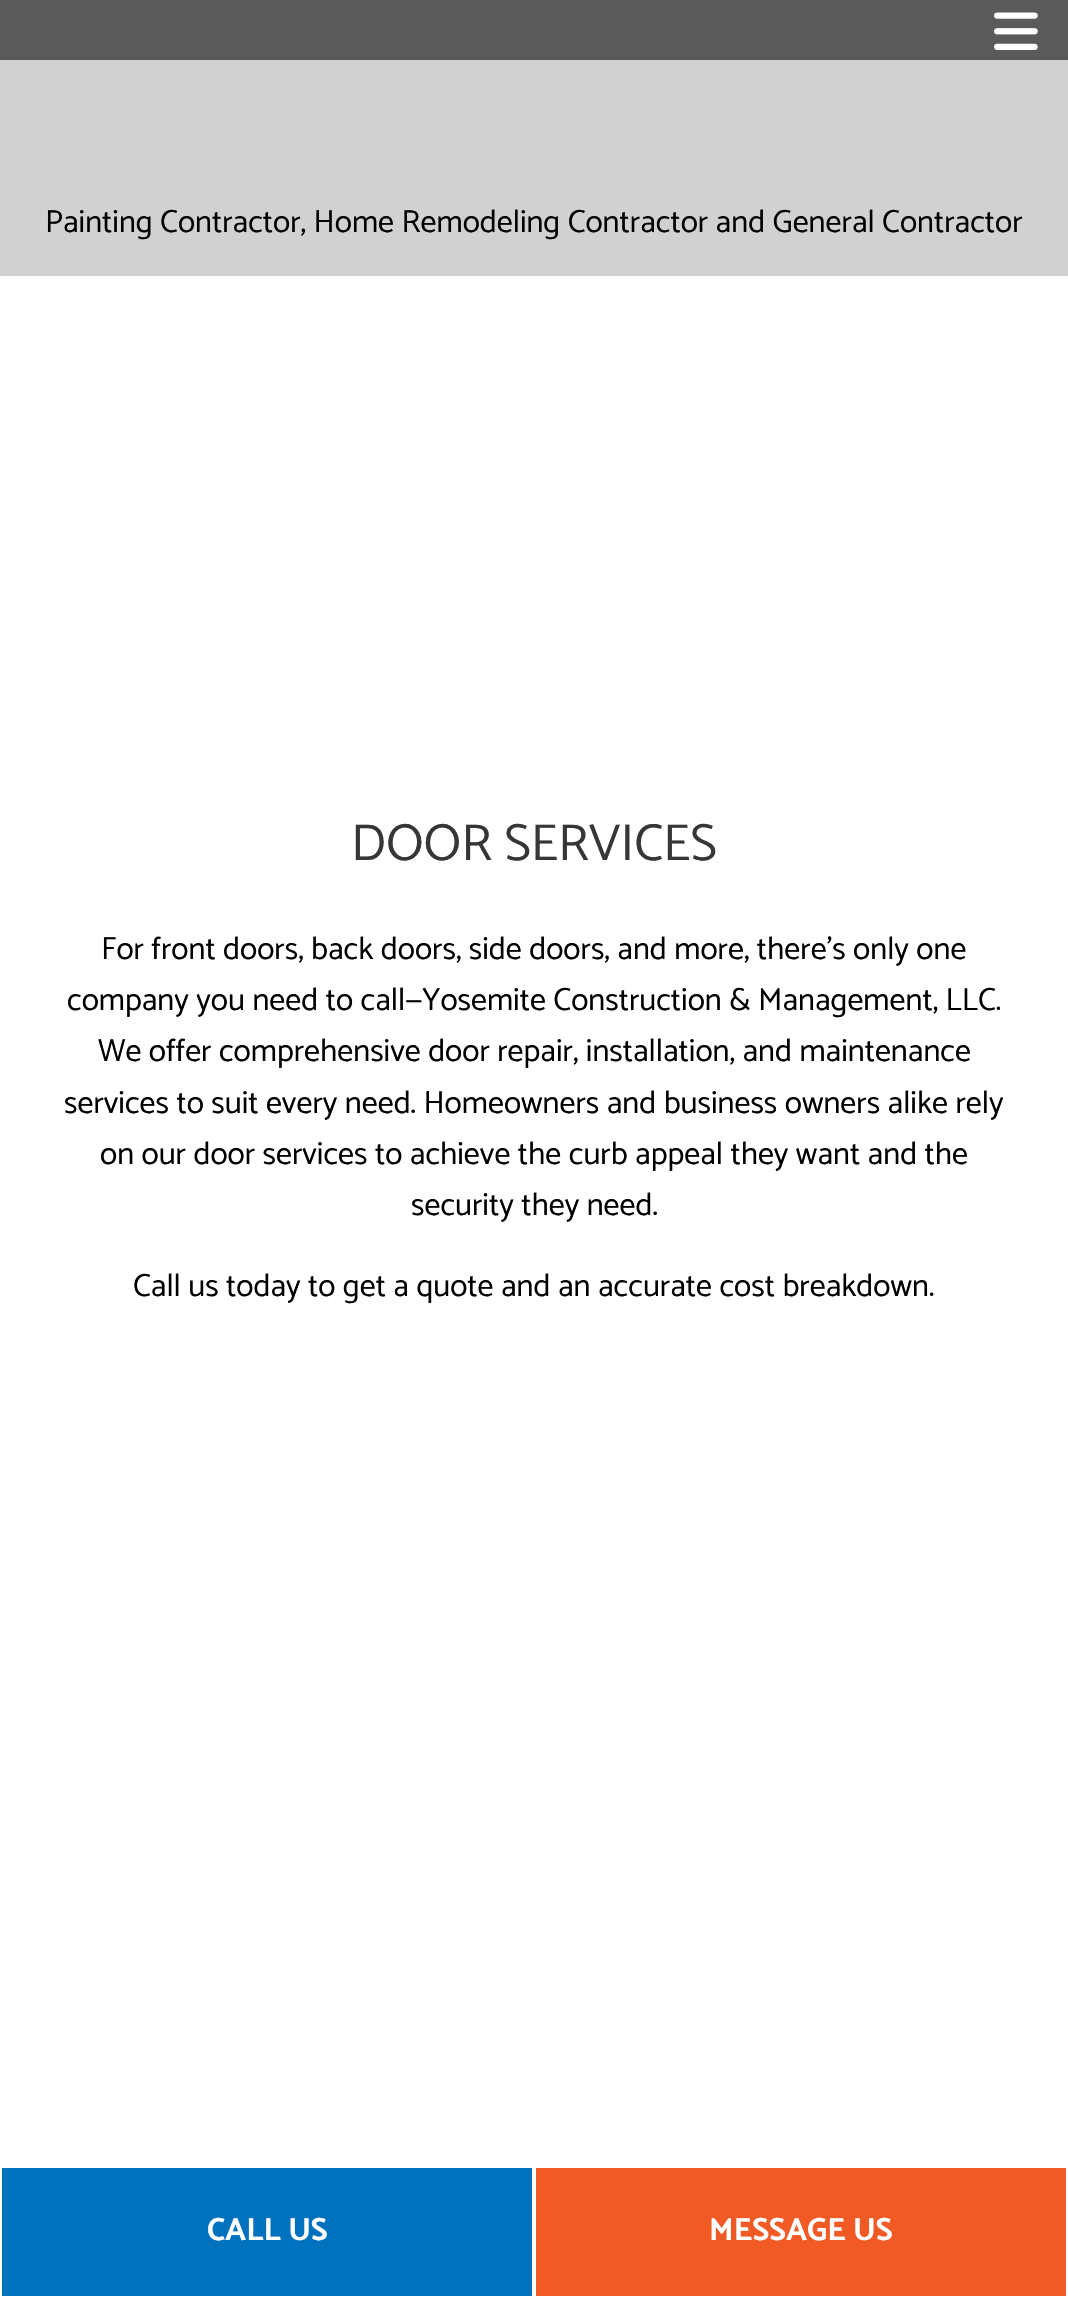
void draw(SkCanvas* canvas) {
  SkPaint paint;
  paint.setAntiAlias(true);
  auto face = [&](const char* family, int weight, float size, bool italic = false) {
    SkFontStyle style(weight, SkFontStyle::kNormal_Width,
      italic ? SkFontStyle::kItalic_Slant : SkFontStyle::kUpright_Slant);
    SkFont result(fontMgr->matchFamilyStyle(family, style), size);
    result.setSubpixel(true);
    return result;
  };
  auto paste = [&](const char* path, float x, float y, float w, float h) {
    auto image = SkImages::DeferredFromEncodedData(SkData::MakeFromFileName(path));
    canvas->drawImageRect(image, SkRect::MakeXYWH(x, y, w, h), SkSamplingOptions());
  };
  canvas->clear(0xffffffff);
  paint.setColor(0xff5a5a5a);
  canvas->drawRect(SkRect::MakeXYWH(0, 0, 1068, 60), paint);
  paste("img/1.png", 994, 12, 44, 38);
  {
    const struct { float x, y, w, h; SkColor color; } items[] = {
      {0, 60, 1068, 216, 0xffd1d1d1},
      {2, 2168, 530, 128, 0xff0071bc},
      {536, 2168, 530, 128, 0xfff15a24},
    };
    for (auto [x, y, w, h, color] : items) {
      paint.setColor(color);
      canvas->drawRect(SkRect::MakeXYWH(x, y, w, h), paint);
    }
  }
  auto f0 = face("Catamaran", 400, 32);
  paint.setColor(0xff000000);
  canvas->drawString("Painting Contractor, Home Remodeling Contractor and General Contractor", 45, 232, f0, paint);
  auto f1 = face("Catamaran", 400, 52);
  paint.setColor(0xff363636);
  canvas->drawString("DOOR SERVICES", 351, 860, f1, paint);
  paint.setColor(0xff000000);
  {
    const struct { const char* s; float x, y; } items[] = {
      {"For front doors, back doors, side doors, and more, there’s only one", 101, 959},
      {"company you need to call—Yosemite Construction & Management, LLC.", 67, 1010},
      {"We offer comprehensive door repair, installation, and maintenance", 98, 1061},
      {"services to suit every need. Homeowners and business owners alike rely", 64, 1113},
      {"on our door services to achieve the curb appeal they want and the", 100, 1164},
      {"security they need.", 411, 1215},
      {"Call us today to get a quote and an accurate cost breakdown.", 133, 1296},
    };
    for (auto [s, x, y] : items) {
      canvas->drawString(s, x, y, f0, paint);
    }
  }
  auto f2 = face("Catamaran", 700, 32);
  paint.setColor(0xffffffff);
  canvas->drawString("CALL US", 207, 2240, f2, paint);
  canvas->drawString("MESSAGE US", 709, 2240, f2, paint);
}
